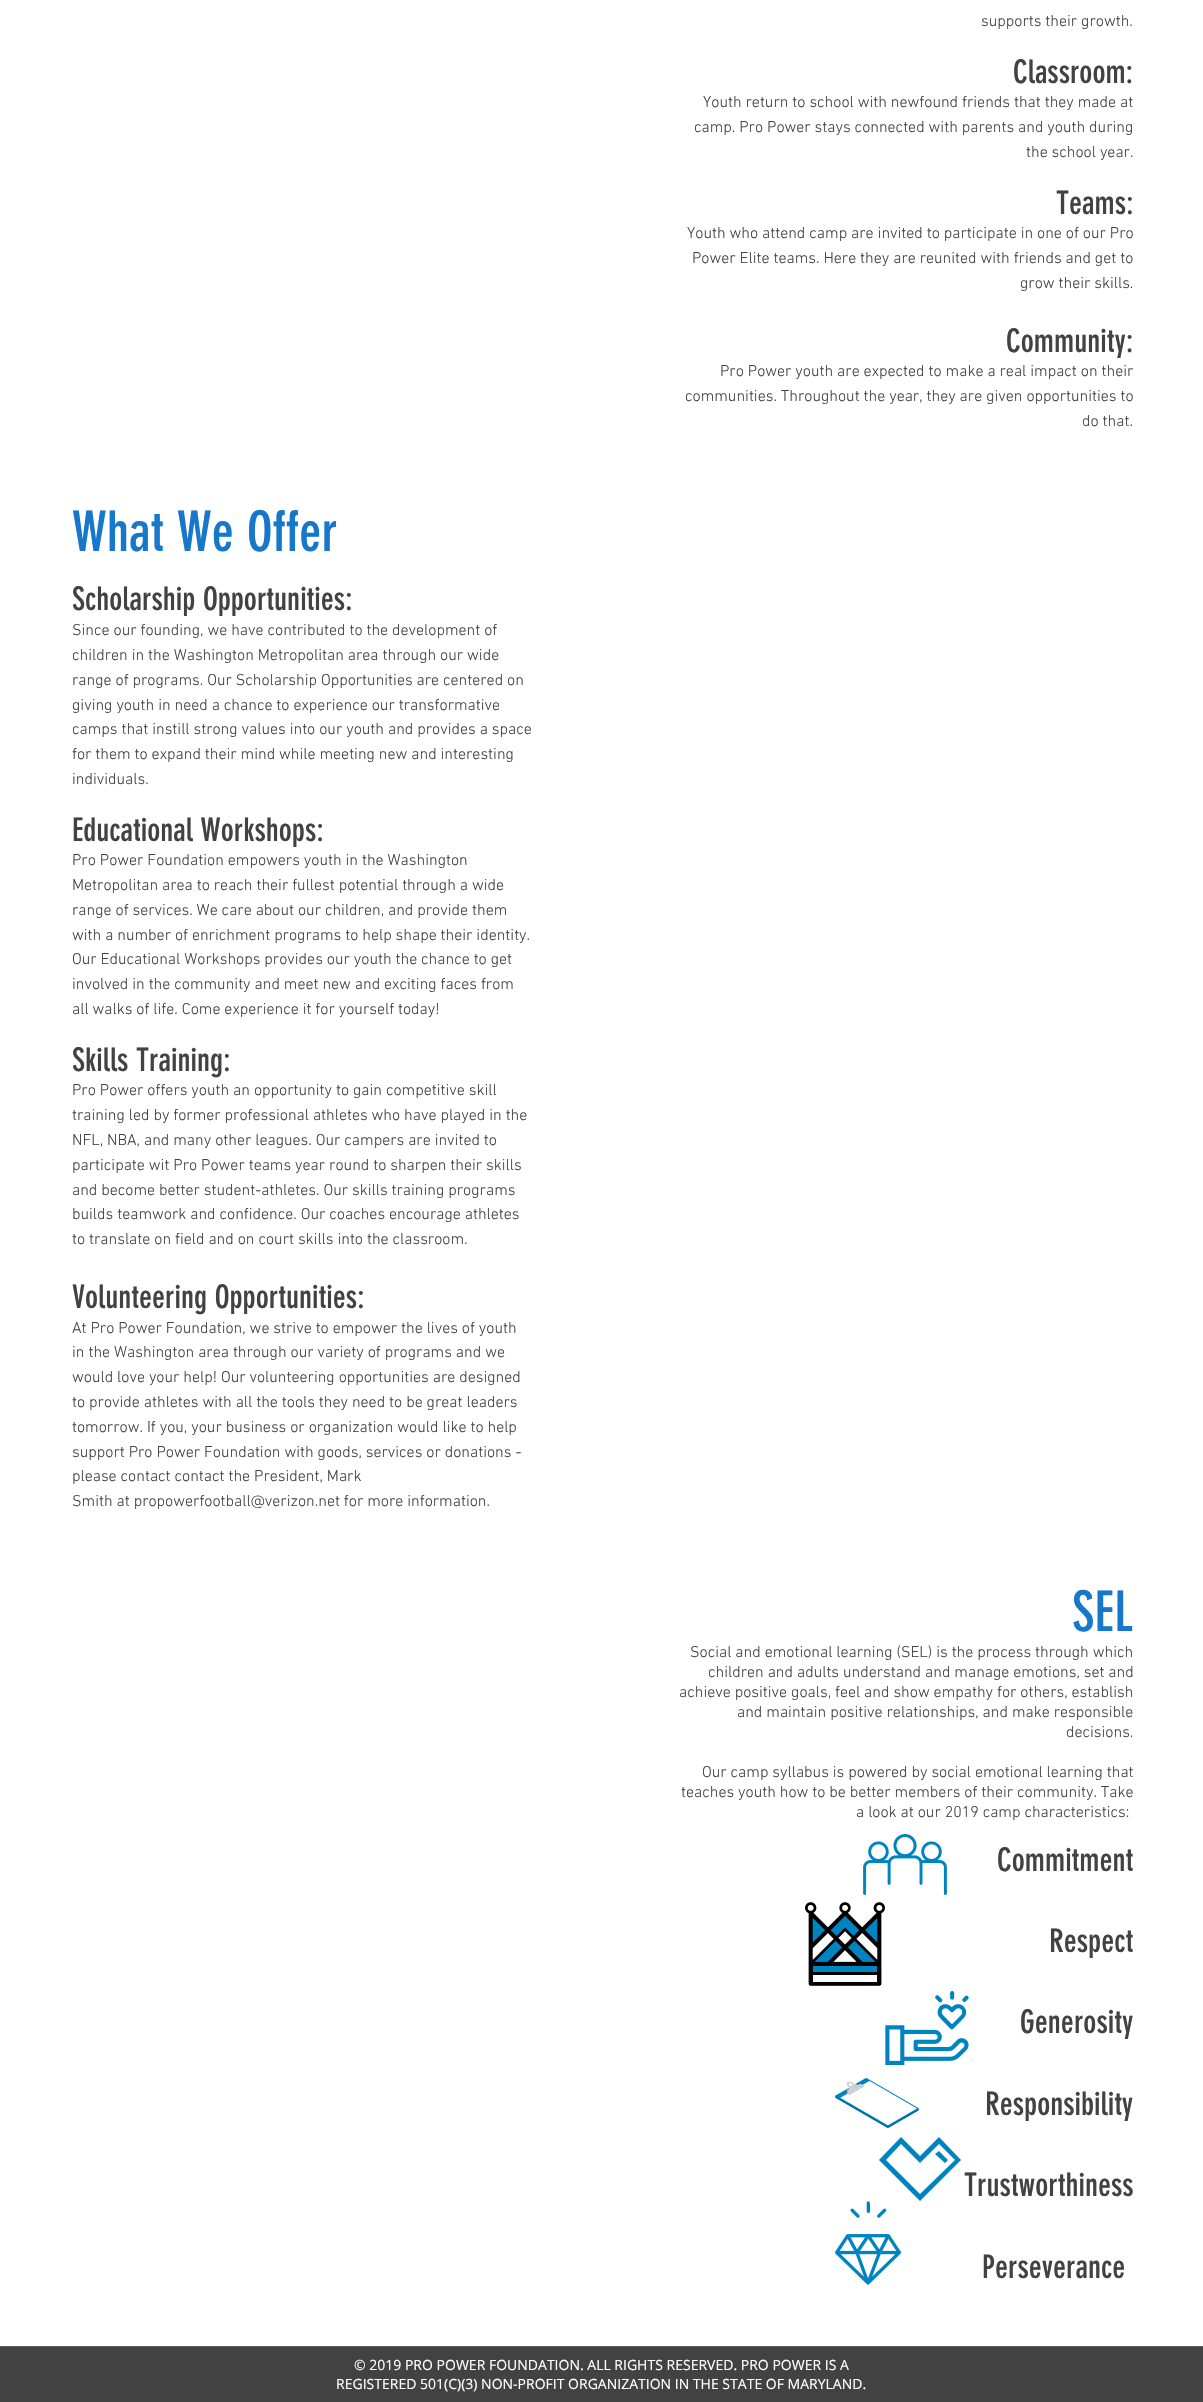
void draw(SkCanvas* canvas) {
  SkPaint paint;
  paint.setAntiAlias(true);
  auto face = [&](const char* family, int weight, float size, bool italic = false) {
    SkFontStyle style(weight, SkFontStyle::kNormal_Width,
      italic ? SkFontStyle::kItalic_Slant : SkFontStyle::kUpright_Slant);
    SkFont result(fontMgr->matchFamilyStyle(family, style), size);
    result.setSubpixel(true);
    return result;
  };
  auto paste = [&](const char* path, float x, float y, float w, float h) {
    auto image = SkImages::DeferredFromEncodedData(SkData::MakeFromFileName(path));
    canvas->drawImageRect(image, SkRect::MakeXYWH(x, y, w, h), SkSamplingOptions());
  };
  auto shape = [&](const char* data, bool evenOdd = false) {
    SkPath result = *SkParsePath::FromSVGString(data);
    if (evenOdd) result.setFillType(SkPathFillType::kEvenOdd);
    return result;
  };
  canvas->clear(0xffffffff);
  paste("img/1.png", 863, 1834, 84, 61);
  paste("img/2.png", 805, 1902, 80, 84);
  paste("img/3.png", 885, 1991, 84, 74);
  paste("img/4.png", 835, 2078, 84, 50);
  paint.setColor(0xff0084c1);
  canvas->drawPath(shape("M948 2160L945 2163L935 2154L939 2151ZM961 2160L920 2201L879 2160L901 2137L920 2156L939 2137ZM920 2194L955 2160L939 2144L920 2163L901 2144L886 2160Z"), paint);
  paste("img/5.png", 835, 2201, 66, 84);
  paint.setColor(0xff424242);
  canvas->drawRect(SkRect::MakeXYWH(0, 2347, 1203, 55), paint);
  paint.setColor(0xff5e5e5e);
  canvas->drawRect(SkRect::MakeXYWH(0, 2346, 1203, 1), paint);
  auto f0 = face("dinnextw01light", 300, 16);
  paint.setColor(0xff424242);
  canvas->drawString("supports their growth.", 981, 26, f0, paint);
  auto f1 = face("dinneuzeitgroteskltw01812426", 400, 32);
  canvas->drawString("Classroom:", 1013, 83, f1, paint);
  {
    const struct { const char* s; float x, y; } items[] = {
      {"Youth return to school with newfound friends that they made at", 703, 107},
      {"camp. Pro Power stays connected with parents and youth during", 694, 132},
      {"the school year.", 1026, 157},
    };
    for (auto [s, x, y] : items) {
      canvas->drawString(s, x, y, f0, paint);
    }
  }
  canvas->drawString("Teams:", 1056, 214, f1, paint);
  {
    const struct { const char* s; float x, y; } items[] = {
      {"Youth who attend camp are invited to participate in one of our Pro", 687, 238},
      {"Power Elite teams. Here they are reunited with friends and get to", 692, 263},
      {"grow their skills.", 1020, 288},
    };
    for (auto [s, x, y] : items) {
      canvas->drawString(s, x, y, f0, paint);
    }
  }
  canvas->drawString("Community:", 1006, 352, f1, paint);
  {
    const struct { const char* s; float x, y; } items[] = {
      {"Pro Power youth are expected to make a real impact on their", 720, 376},
      {"communities. Throughout the year, they are given opportunities to", 685, 401},
      {"do that.", 1082, 426},
    };
    for (auto [s, x, y] : items) {
      canvas->drawString(s, x, y, f0, paint);
    }
  }
  auto f2 = face("dinneuzeitgroteskltw01812426", 400, 55);
  paint.setColor(0xff1777cb);
  canvas->drawString("What We Offer", 72, 551, f2, paint);
  paint.setColor(0xff424242);
  canvas->drawString("Scholarship Opportunities:", 72, 610, f1, paint);
  {
    const struct { const char* s; float x, y; } items[] = {
      {"Since our founding, we have contributed to the development of", 72, 635},
      {"children in the Washington Metropolitan area through our wide", 72, 660},
      {"range of programs. Our Scholarship Opportunities are centered on", 72, 685},
      {"giving youth in need a chance to experience our transformative", 72, 710},
      {"camps that instill strong values into our youth and provides a space", 72, 734},
      {"for them to expand their mind while meeting new and interesting", 72, 759},
      {"individuals.", 72, 784},
    };
    for (auto [s, x, y] : items) {
      canvas->drawString(s, x, y, f0, paint);
    }
  }
  canvas->drawString("Educational Workshops:", 72, 841, f1, paint);
  {
    const struct { const char* s; float x, y; } items[] = {
      {"Pro Power Foundation empowers youth in the Washington", 72, 865},
      {"Metropolitan area to reach their fullest potential through a wide", 72, 890},
      {"range of services. We care about our children, and provide them", 72, 915},
      {"with a number of enrichment programs to help shape their identity.", 72, 940},
      {"Our Educational Workshops provides our youth the chance to get", 72, 964},
      {"involved in the community and meet new and exciting faces from", 72, 989},
      {"all walks of life. Come experience it for yourself today!", 72, 1014},
    };
    for (auto [s, x, y] : items) {
      canvas->drawString(s, x, y, f0, paint);
    }
  }
  canvas->drawString("Skills Training:", 72, 1071, f1, paint);
  {
    const struct { const char* s; float x, y; } items[] = {
      {"Pro Power offers youth an opportunity to gain competitive skill", 72, 1095},
      {"training led by former professional athletes who have played in the", 72, 1120},
      {"NFL, NBA, and many other leagues. Our campers are invited to", 72, 1145},
      {"participate wit Pro Power teams year round to sharpen their skills", 72, 1170},
      {"and become better student-athletes. Our skills training programs", 72, 1195},
      {"builds teamwork and confidence. Our coaches encourage athletes", 72, 1219},
      {"to translate on field and on court skills into the classroom.", 72, 1244},
    };
    for (auto [s, x, y] : items) {
      canvas->drawString(s, x, y, f0, paint);
    }
  }
  canvas->drawString("Volunteering Opportunities:", 72, 1308, f1, paint);
  {
    const struct { const char* s; float x, y; } items[] = {
      {"At Pro Power Foundation, we strive to empower the lives of youth", 72, 1333},
      {"in the Washington area through our variety of programs and we", 72, 1357},
      {"would love your help! Our volunteering opportunities are designed", 72, 1382},
      {"to provide athletes with all the tools they need to be great leaders", 72, 1407},
      {"tomorrow. If you, your business or organization would like to help", 72, 1432},
      {"support Pro Power Foundation with goods, services or donations -", 72, 1457},
      {"please contact contact the President, Mark", 72, 1481},
      {"Smith at propowerfootball@verizon.net for more information.", 72, 1506},
    };
    for (auto [s, x, y] : items) {
      canvas->drawString(s, x, y, f0, paint);
    }
  }
  paint.setColor(0xff1777cb);
  canvas->drawString("SEL", 1072, 1631, f2, paint);
  paint.setColor(0xff424242);
  {
    const struct { const char* s; float x, y; } items[] = {
      {"Social and emotional learning (SEL) is the process through which", 690, 1657},
      {"children and adults understand and manage emotions, set and", 708, 1677},
      {"achieve positive goals, feel and show empathy for others, establish", 679, 1697},
      {"and maintain positive relationships, and make responsible", 737, 1717},
      {"decisions.", 1066, 1737},
      {"Our camp syllabus is powered by social emotional learning that", 702, 1777},
      {"teaches youth how to be better members of their community. Take", 681, 1797},
      {"a look at our 2019 camp characteristics:", 856, 1817},
    };
    for (auto [s, x, y] : items) {
      canvas->drawString(s, x, y, f0, paint);
    }
  }
  {
    const struct { const char* s; float x, y; } items[] = {
      {"Commitment", 997, 1871},
      {"Respect", 1049, 1952},
      {"Generosity", 1020, 2033},
      {"Responsibility", 985, 2115},
      {"Trustworthiness", 964, 2196},
      {"Perseverance", 982, 2278},
    };
    for (auto [s, x, y] : items) {
      canvas->drawString(s, x, y, f1, paint);
    }
  }
  auto f3 = face("Open Sans", 400, 14);
  paint.setColor(0xffffffff);
  canvas->drawString("© 2019 PRO POWER FOUNDATION. ALL RIGHTS RESERVED. PRO POWER IS A", 354, 2370, f3, paint);
  canvas->drawString("REGISTERED 501(C)(3) NON-PROFIT ORGANIZATION IN THE STATE OF MARYLAND.", 336, 2389, f3, paint);
}
